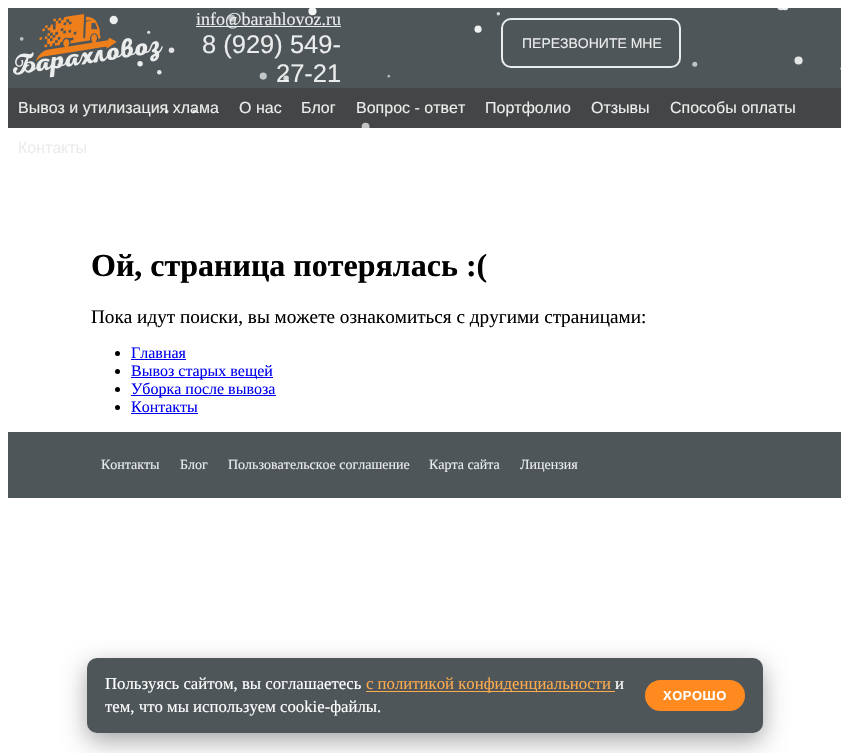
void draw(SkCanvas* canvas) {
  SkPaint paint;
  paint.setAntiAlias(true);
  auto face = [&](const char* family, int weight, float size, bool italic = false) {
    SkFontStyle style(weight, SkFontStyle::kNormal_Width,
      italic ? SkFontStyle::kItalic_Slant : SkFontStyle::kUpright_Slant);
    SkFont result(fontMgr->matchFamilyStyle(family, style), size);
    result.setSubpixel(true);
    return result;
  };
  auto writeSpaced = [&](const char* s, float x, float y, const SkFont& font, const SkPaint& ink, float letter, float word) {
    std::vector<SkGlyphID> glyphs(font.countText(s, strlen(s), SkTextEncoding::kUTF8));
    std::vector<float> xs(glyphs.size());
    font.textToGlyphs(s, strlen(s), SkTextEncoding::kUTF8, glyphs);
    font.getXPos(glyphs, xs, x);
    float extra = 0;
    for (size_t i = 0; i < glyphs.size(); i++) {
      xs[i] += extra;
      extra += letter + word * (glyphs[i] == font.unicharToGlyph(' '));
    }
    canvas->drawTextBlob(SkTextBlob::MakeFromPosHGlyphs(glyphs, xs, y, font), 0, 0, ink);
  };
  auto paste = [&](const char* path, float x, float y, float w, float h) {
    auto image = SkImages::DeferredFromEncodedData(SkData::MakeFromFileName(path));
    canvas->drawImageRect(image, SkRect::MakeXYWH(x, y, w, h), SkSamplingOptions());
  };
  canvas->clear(0xffffffff);
  paint.setColor(0xff4e565a);
  canvas->drawRect(SkRect::MakeXYWH(8, 8, 833, 80), paint);
  paste("img/2.png", 13, 14, 150, 64);
  paint.setColor(0xffebecec);
  canvas->drawRect(SkRect::MakeXYWH(196, 26, 145, 1), paint);
  paint.setStroke(true);
  paint.setStrokeWidth(2);
  canvas->drawRoundRect(SkRect::MakeXYWH(502, 19, 178, 48), 9, 9, paint);
  paint.setStroke(false);
  paint.setColor(0xff444546);
  canvas->drawRect(SkRect::MakeXYWH(8, 88, 833, 40), paint);
  paint.setColor(0xff000000);
  canvas->drawCircle(117.5f, 353.5f, 2.5f, paint);
  paint.setColor(0xff0000ee);
  canvas->drawRect(SkRect::MakeXYWH(131, 359, 55, 1), paint);
  paint.setColor(0xff000000);
  canvas->drawCircle(117.5f, 371.5f, 2.5f, paint);
  paint.setColor(0xff0000ee);
  canvas->drawRect(SkRect::MakeXYWH(131, 377, 142, 1), paint);
  paint.setColor(0xff000000);
  canvas->drawCircle(117.5f, 389.5f, 2.5f, paint);
  paint.setColor(0xff0000ee);
  canvas->drawRect(SkRect::MakeXYWH(131, 395, 145, 1), paint);
  paint.setColor(0xff000000);
  canvas->drawCircle(117.5f, 407.5f, 2.5f, paint);
  paint.setColor(0xff0000ee);
  canvas->drawRect(SkRect::MakeXYWH(131, 413, 67, 1), paint);
  paint.setColor(0xff4e565a);
  canvas->drawRect(SkRect::MakeXYWH(8, 432, 833, 66), paint);
  paint.setColor(0x59000000);
  paint.setMaskFilter(SkMaskFilter::MakeBlur(kNormal_SkBlurStyle, 12));
  canvas->drawRoundRect(SkRect::MakeXYWH(87, 666, 676, 75), 10, 10, paint);
  paint.setMaskFilter(nullptr);
  paint.setColor(0xff4e565a);
  canvas->drawRoundRect(SkRect::MakeXYWH(87, 658, 676, 75), 10, 10, paint);
  paint.setColor(0xffffaa4d);
  canvas->drawRect(SkRect::MakeXYWH(366, 691, 249, 1), paint);
  paint.setColor(0xffff8a1f);
  canvas->drawRoundRect(SkRect::MakeXYWH(645, 680, 100, 31), 15.5f, 15.5f, paint);
  auto f0 = face("Liberation Serif", 400, 18);
  paint.setColor(0xffebecec);
  canvas->drawString("info@barahlovoz.ru", 196, 25, f0, paint);
  auto f1 = face("Liberation Sans", 400, 25.5f);
  canvas->drawString("8 (929) 549-", 202, 53, f1, paint);
  canvas->drawString("27-21", 276, 82, f1, paint);
  auto f2 = face("Liberation Sans", 400, 14);
  canvas->drawString("ПЕРЕЗВОНИТЕ МНЕ", 522, 48, f2, paint);
  auto f3 = face("Liberation Sans", 400, 16);
  {
    const struct { const char* s; float x, y; } items[] = {
      {"Вывоз и утилизация хлама", 18, 113},
      {"О нас", 239, 113},
      {"Блог", 301, 113},
      {"Вопрос - ответ", 356, 113},
      {"Портфолио", 485, 113},
      {"Отзывы", 591, 113},
      {"Способы оплаты", 670, 113},
    };
    for (auto [s, x, y] : items) {
      canvas->drawString(s, x, y, f3, paint);
    }
  }
  paste("img/1.png", 19, 8, 822, 120);
  canvas->drawString("Контакты", 18, 153, f3, paint);
  auto f4 = face("Liberation Serif", 700, 32);
  paint.setColor(0xff000000);
  canvas->drawString("Ой, страница потерялась :(", 91, 276, f4, paint);
  auto f5 = face("Liberation Serif", 400, 19.2f);
  canvas->drawString("Пока идут поиски, вы можете ознакомиться с другими страницами:", 91, 323, f5, paint);
  auto f6 = face("Liberation Serif", 400, 16);
  paint.setColor(0xff0000ee);
  {
    const struct { const char* s; float x, y; } items[] = {
      {"Главная", 131, 358},
      {"Вывоз старых вещей", 131, 376},
      {"Уборка после вывоза", 131, 394},
      {"Контакты", 131, 412},
    };
    for (auto [s, x, y] : items) {
      canvas->drawString(s, x, y, f6, paint);
    }
  }
  auto f7 = face("Liberation Serif", 400, 14);
  paint.setColor(0xffebecec);
  {
    const struct { const char* s; float x, y; } items[] = {
      {"Контакты", 101, 469},
      {"Блог", 180, 469},
      {"Пользовательское соглашение", 228, 469},
      {"Карта сайта", 429, 469},
      {"Лицензия", 520, 469},
    };
    for (auto [s, x, y] : items) {
      canvas->drawString(s, x, y, f7, paint);
    }
  }
  auto f8 = face("Liberation Serif", 400, 16.75f);
  paint.setColor(0xffffffff);
  canvas->drawString("Пользуясь сайтом, вы соглашаетесь", 105, 689, f8, paint);
  paint.setColor(0xffffaa4d);
  canvas->drawString("с политикой конфиденциальности", 366, 689, f8, paint);
  paint.setColor(0xffffffff);
  canvas->drawString("и", 615, 689, f8, paint);
  canvas->drawString("тем, что мы используем cookie-файлы.", 105, 712, f8, paint);
  auto f9 = face("Liberation Sans", 700, 13);
  writeSpaced("ХОРОШО", 663, 700, f9, paint, 0.5f, 0);
}
